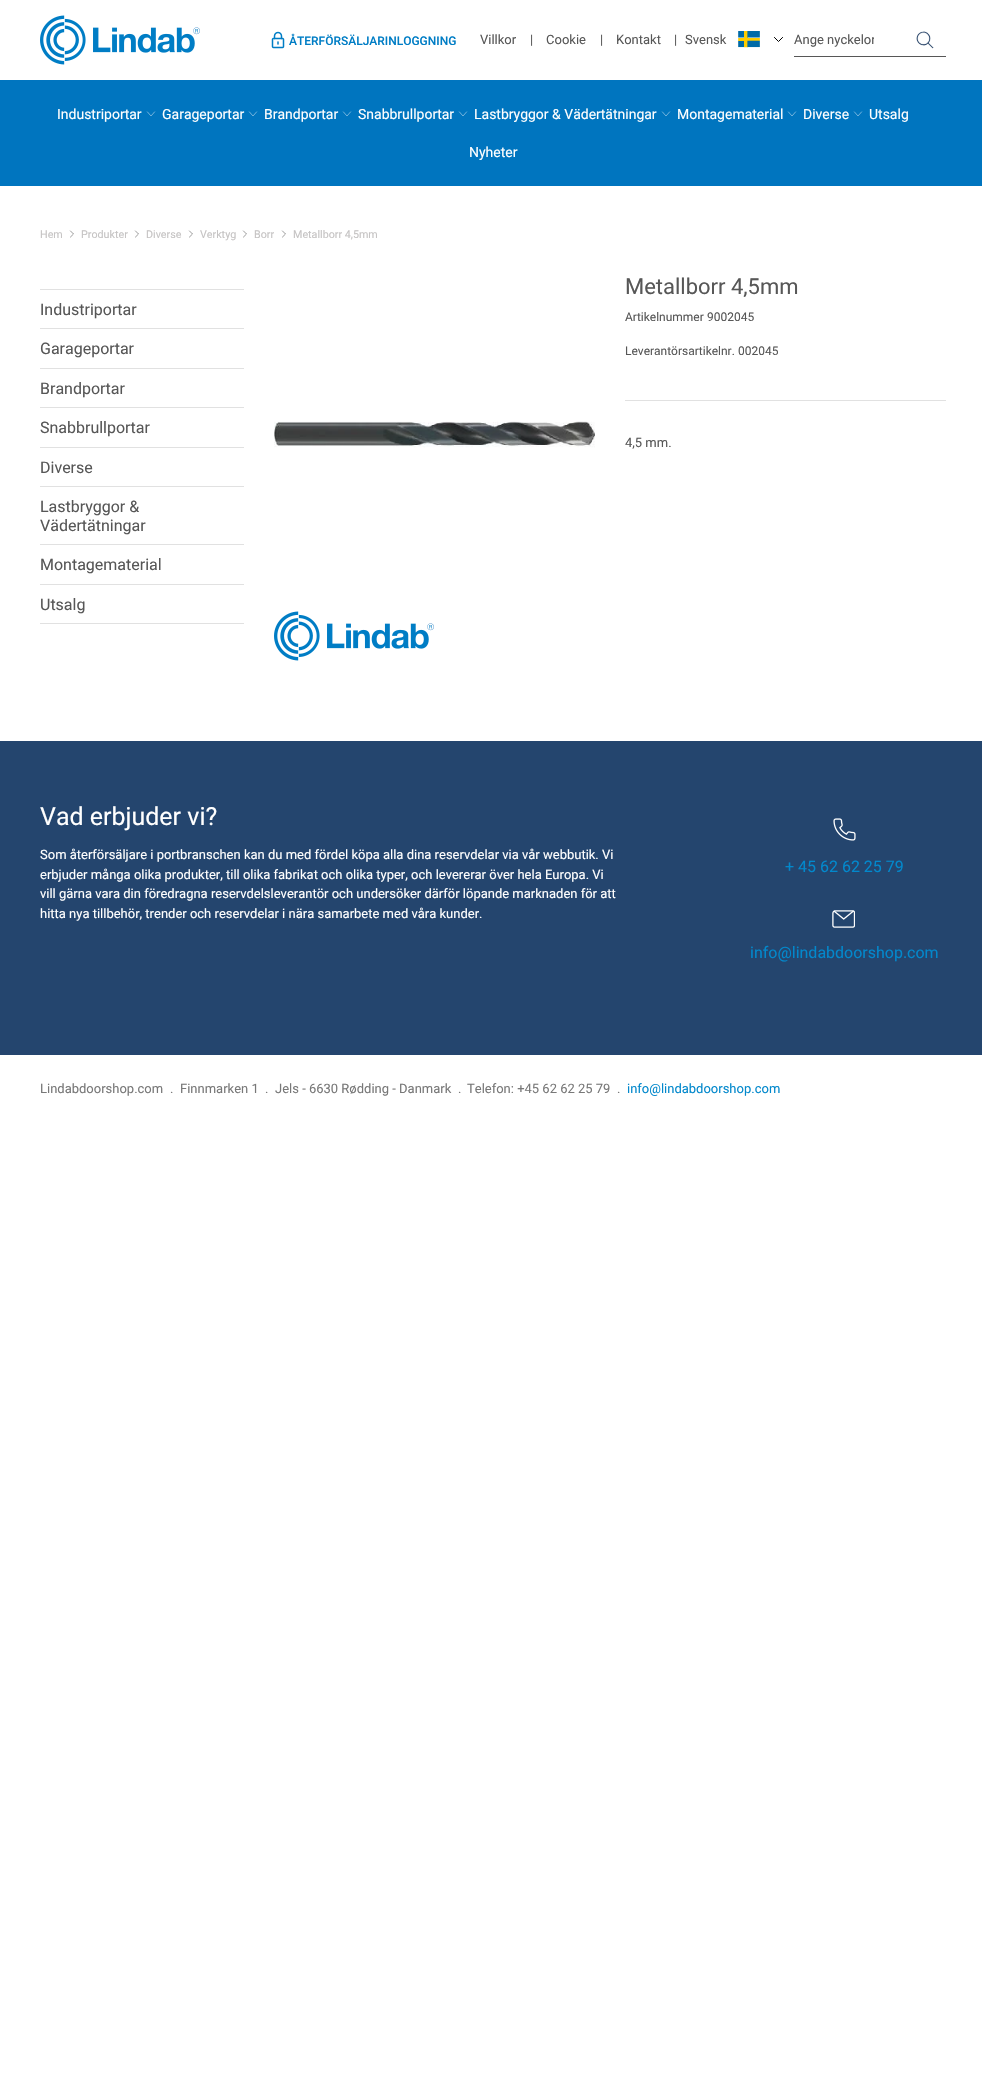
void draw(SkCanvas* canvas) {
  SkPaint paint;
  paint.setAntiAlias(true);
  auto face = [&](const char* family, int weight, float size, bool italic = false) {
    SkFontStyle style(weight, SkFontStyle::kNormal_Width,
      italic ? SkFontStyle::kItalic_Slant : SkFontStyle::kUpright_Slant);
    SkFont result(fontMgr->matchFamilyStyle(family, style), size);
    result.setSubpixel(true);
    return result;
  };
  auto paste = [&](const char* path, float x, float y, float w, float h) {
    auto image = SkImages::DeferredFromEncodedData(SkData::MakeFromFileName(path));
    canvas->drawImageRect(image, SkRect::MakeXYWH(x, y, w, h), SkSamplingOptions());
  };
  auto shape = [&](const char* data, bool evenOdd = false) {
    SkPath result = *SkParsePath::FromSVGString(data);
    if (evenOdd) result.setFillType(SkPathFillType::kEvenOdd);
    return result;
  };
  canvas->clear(0xffffffff);
  paste("img/1.png", 40, 15, 160, 50);
  paste("img/2.png", 271, 31, 14, 18);
  paint.setStroke(true);
  paint.setStrokeWidth(1);
  paint.setStrokeCap(SkPaint::kSquare_Cap);
  paint.setColor(0xff000000);
  canvas->drawPath(shape("M782.5 37.5L778.5 41.5L774.5 37.5"), paint);
  paste("img/3.png", 738, 31, 22, 17);
  paint.setStroke(false);
  paint.setColor(0xff575757);
  canvas->drawRect(SkRect::MakeXYWH(794, 56, 152, 1), paint);
  paste("img/4.png", 916, 31, 18, 18);
  paint.setColor(0xff0075bf);
  canvas->drawRect(SkRect::MakeXYWH(0, 80, 982, 106), paint);
  paint.setStroke(true);
  paint.setStrokeWidth(0.9f);
  paint.setColor(0xff80badf);
  canvas->drawPath(shape("M154.5 112L151 116L147.5 112"), paint);
  canvas->drawPath(shape("M256.5 112L253 116L249.5 112"), paint);
  canvas->drawPath(shape("M350.5 112L347 116L343.5 112"), paint);
  canvas->drawPath(shape("M466.5 112L463 116L459.5 112"), paint);
  canvas->drawPath(shape("M669.5 112L666 116L662.5 112"), paint);
  canvas->drawPath(shape("M795.5 112L792 116L788.5 112"), paint);
  canvas->drawPath(shape("M861.5 112L858 116L854.5 112"), paint);
  paint.setStrokeWidth(0.6f);
  paint.setColor(0xff575757);
  canvas->drawPath(shape("M70.5 237L73.5 234L70.5 231"), paint);
  canvas->drawPath(shape("M135.5 237L138.5 234L135.5 231"), paint);
  canvas->drawPath(shape("M189.5 237L192.5 234L189.5 231"), paint);
  canvas->drawPath(shape("M243.5 237L246.5 234L243.5 231"), paint);
  canvas->drawPath(shape("M282.5 237L285.5 234L282.5 231"), paint);
  paint.setStroke(false);
  {
    const struct { float x, y, w, h; SkColor color; } items[] = {
      {40, 289, 204, 1, 0xffe1e1e1},
      {40, 328, 204, 1, 0xffe1e1e1},
      {40, 368, 204, 1, 0xffe1e1e1},
      {40, 407, 204, 1, 0xffe1e1e1},
      {40, 447, 204, 1, 0xffe1e1e1},
      {40, 486, 204, 1, 0xffe1e1e1},
      {40, 544, 204, 1, 0xffe1e1e1},
      {40, 584, 204, 1, 0xffe1e1e1},
      {40, 623, 204, 1, 0xffe1e1e1},
      {625, 400, 321, 1, 0xffe1e1e1},
    };
    for (auto [x, y, w, h, color] : items) {
      paint.setColor(color);
      canvas->drawRect(SkRect::MakeXYWH(x, y, w, h), paint);
    }
  }
  paste("img/5.png", 274, 421, 321, 27);
  paste("img/1.png", 274, 611, 160, 50);
  paint.setColor(0xff24456e);
  canvas->drawRect(SkRect::MakeXYWH(0, 741, 982, 314), paint);
  paste("img/6.png", 833, 818, 23, 23);
  paste("img/7.png", 832, 910, 23, 18);
  auto f0 = face("Roboto", 500, 12);
  paint.setColor(0xff007dc5);
  canvas->drawString("ÅTERFÖRSÄLJARINLOGGNING", 289, 45, f0, paint);
  auto f1 = face("Roboto", 400, 13);
  paint.setColor(0xff575757);
  {
    const struct { const char* s; float x, y; } items[] = {
      {"Villkor", 480, 44},
      {"|", 530, 44},
      {"Cookie", 546, 44},
      {"|", 600, 44},
      {"Kontakt", 616, 44},
      {"|", 674, 44},
      {"Svensk", 685, 44},
    };
    for (auto [s, x, y] : items) {
      canvas->drawString(s, x, y, f1, paint);
    }
  }
  canvas->save();
  canvas->clipRect(SkRect::MakeXYWH(794, 30, 80, 18));
  canvas->drawString("Ange nyckelor", 794, 44, f1, paint);
  canvas->restore();
  auto f2 = face("Roboto", 400, 14);
  paint.setColor(0xffffffff);
  {
    const struct { const char* s; float x, y; } items[] = {
      {"Industriportar", 57, 119},
      {"Garageportar", 162, 119},
      {"Brandportar", 264, 119},
      {"Snabbrullportar", 358, 119},
      {"Lastbryggor & Vädertätningar", 474, 119},
      {"Montagematerial", 677, 119},
      {"Diverse", 803, 119},
      {"Utsalg", 869, 119},
      {"Nyheter", 469, 157},
    };
    for (auto [s, x, y] : items) {
      canvas->drawString(s, x, y, f2, paint);
    }
  }
  auto f3 = face("Roboto", 400, 10.75f);
  paint.setColor(0xffc5c3c3);
  {
    const struct { const char* s; float x, y; } items[] = {
      {"Hem", 40, 238},
      {"Produkter", 81, 238},
      {"Diverse", 146, 238},
      {"Verktyg", 200, 238},
      {"Borr", 254, 238},
      {"Metallborr 4,5mm", 293, 238},
    };
    for (auto [s, x, y] : items) {
      canvas->drawString(s, x, y, f3, paint);
    }
  }
  auto f4 = face("Roboto", 400, 16);
  paint.setColor(0xff575757);
  {
    const struct { const char* s; float x, y; } items[] = {
      {"Industriportar", 40, 315},
      {"Garageportar", 40, 354},
      {"Brandportar", 40, 394},
      {"Snabbrullportar", 40, 433},
      {"Diverse", 40, 473},
      {"Lastbryggor &", 40, 512},
      {"Vädertätningar", 40, 531},
      {"Montagematerial", 40, 570},
      {"Utsalg", 40, 610},
    };
    for (auto [s, x, y] : items) {
      canvas->drawString(s, x, y, f4, paint);
    }
  }
  auto f5 = face("Roboto", 400, 22);
  canvas->drawString("Metallborr 4,5mm", 625, 294, f5, paint);
  auto f6 = face("Roboto", 400, 12);
  {
    const struct { const char* s; float x, y; } items[] = {
      {"Artikelnummer", 625, 321},
      {"9002045", 707, 321},
      {"Leverantörsartikelnr.", 625, 355},
      {"002045", 738, 355},
    };
    for (auto [s, x, y] : items) {
      canvas->drawString(s, x, y, f6, paint);
    }
  }
  canvas->drawString("4,5 mm.", 625, 447, f1, paint);
  auto f7 = face("Roboto", 400, 25);
  paint.setColor(0xffffffff);
  canvas->drawString("Vad erbjuder vi?", 40, 825, f7, paint);
  {
    const struct { const char* s; float x, y; } items[] = {
      {"Som återförsäljare i portbranschen kan du med fördel köpa alla dina reservdelar via vår webbutik. Vi", 40, 859},
      {"erbjuder många olika produkter, till olika fabrikat och olika typer, och levererar över hela Europa. Vi", 40, 879},
      {"vill gärna vara din föredragna reservdelsleverantör och undersöker därför löpande marknaden för att", 40, 898},
      {"hitta nya tillbehör, trender och reservdelar i nära samarbete med våra kunder.", 40, 918},
    };
    for (auto [s, x, y] : items) {
      canvas->drawString(s, x, y, f1, paint);
    }
  }
  paint.setColor(0xff0288cc);
  canvas->drawString("+ 45 62 62 25 79", 785, 872, f4, paint);
  canvas->drawString("info@lindabdoorshop.com", 750, 958, f4, paint);
  paint.setColor(0xff787878);
  {
    const struct { const char* s; float x, y; } items[] = {
      {"Lindabdoorshop.com", 40, 1093},
      {".", 170, 1093},
      {"Finnmarken 1", 180, 1093},
      {".", 265, 1093},
      {"Jels - 6630 Rødding - Danmark", 275, 1093},
      {".", 458, 1093},
      {"Telefon: +45 62 62 25 79", 467, 1093},
      {".", 617, 1093},
    };
    for (auto [s, x, y] : items) {
      canvas->drawString(s, x, y, f1, paint);
    }
  }
  paint.setColor(0xff0288cc);
  canvas->drawString("info@lindabdoorshop.com", 627, 1093, f1, paint);
}
